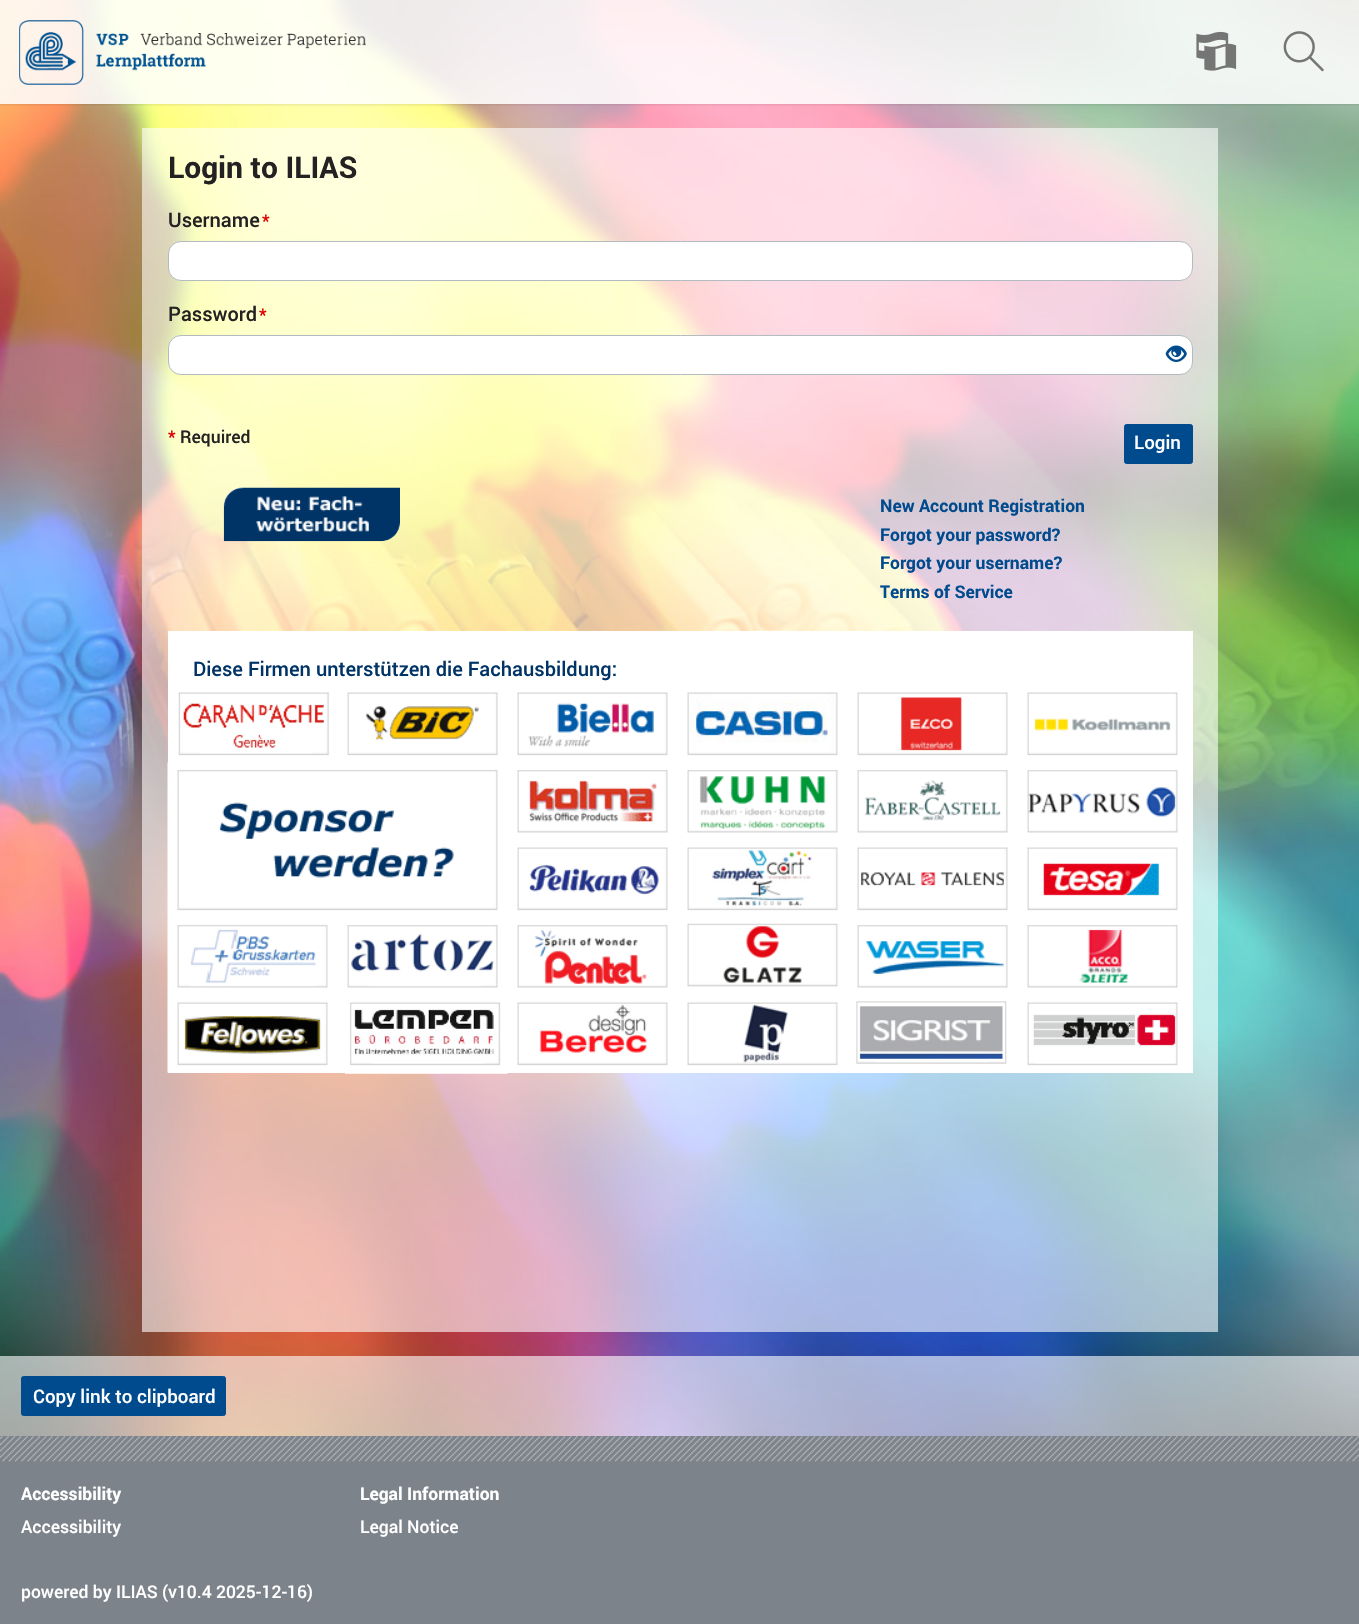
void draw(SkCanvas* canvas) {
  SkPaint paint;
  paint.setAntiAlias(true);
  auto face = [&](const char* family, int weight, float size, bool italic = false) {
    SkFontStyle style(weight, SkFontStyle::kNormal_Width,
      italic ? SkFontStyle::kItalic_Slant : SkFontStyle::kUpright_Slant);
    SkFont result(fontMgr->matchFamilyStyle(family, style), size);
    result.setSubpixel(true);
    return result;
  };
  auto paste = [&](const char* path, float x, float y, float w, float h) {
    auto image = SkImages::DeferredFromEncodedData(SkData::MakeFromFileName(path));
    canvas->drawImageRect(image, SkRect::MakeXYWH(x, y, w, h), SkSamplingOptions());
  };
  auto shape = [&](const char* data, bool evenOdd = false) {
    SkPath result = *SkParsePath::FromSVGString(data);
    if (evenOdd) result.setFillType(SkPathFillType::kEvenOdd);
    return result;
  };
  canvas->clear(0xffffffff);
  paste("img/1.png", 0, 0, 1359, 1436);
  canvas->save();
  canvas->clipPath(shape("M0 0H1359V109H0ZM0 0H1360V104H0Z", true), true);
  paint.setColor(0x1a000000);
  paint.setMaskFilter(SkMaskFilter::MakeBlur(kNormal_SkBlurStyle, 1));
  canvas->drawRect(SkRect::MakeXYWH(0, 1, 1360, 104), paint);
  paint.setMaskFilter(nullptr);
  canvas->restore();
  paint.setColor(0xd9ffffff);
  canvas->drawRect(SkRect::MakeXYWH(0, 0, 1359, 104), paint);
  paste("img/2.png", 19, 20, 347, 65);
  paste("img/3.png", 1196, 31, 41, 40);
  paste("img/4.png", 1283, 31, 41, 41);
  paint.setColor(0x99ffffff);
  canvas->drawRect(SkRect::MakeXYWH(142, 128, 1076, 1204), paint);
  paint.setColor(0xffffffff);
  canvas->drawRoundRect(SkRect::MakeXYWH(168.5f, 241.5f, 1024, 39), 12.5f, 12.5f, paint);
  paint.setStroke(true);
  paint.setStrokeWidth(1);
  paint.setColor(0xffb2bcc0);
  canvas->drawRoundRect(SkRect::MakeXYWH(168.5f, 241.5f, 1024, 39), 12.5f, 12.5f, paint);
  paint.setStroke(false);
  paint.setColor(0xffffffff);
  canvas->drawRoundRect(SkRect::MakeXYWH(168.5f, 335.5f, 1024, 39), 12.5f, 12.5f, paint);
  paint.setStroke(true);
  paint.setColor(0xffb2bcc0);
  canvas->drawRoundRect(SkRect::MakeXYWH(168.5f, 335.5f, 1024, 39), 12.5f, 12.5f, paint);
  paste("img/5.png", 1165, 345, 22, 17);
  paint.setStroke(false);
  paint.setColor(0xff004b8d);
  canvas->drawRoundRect(SkRect::MakeXYWH(1124.5f, 424.5f, 68, 39), 2, 2, paint);
  paint.setStroke(true);
  canvas->drawRoundRect(SkRect::MakeXYWH(1124.5f, 424.5f, 68, 39), 2, 2, paint);
  paste("img/6.png", 223, 487, 177, 55);
  paint.setStroke(false);
  paint.setColor(0xffffffff);
  canvas->drawRect(SkRect::MakeXYWH(168, 631, 1025, 442), paint);
  paste("img/7.png", 178, 692, 151, 64);
  paste("img/8.png", 347, 692, 151, 64);
  paste("img/9.png", 517, 692, 151, 64);
  paste("img/10.png", 687, 692, 151, 64);
  paste("img/11.png", 857, 692, 151, 64);
  paste("img/12.png", 1027, 692, 151, 64);
  paste("img/13.png", 167, 762, 331, 156);
  paste("img/14.png", 517, 770, 151, 63);
  paste("img/15.png", 687, 770, 151, 63);
  paste("img/16.png", 857, 770, 151, 63);
  paste("img/17.png", 1027, 770, 151, 63);
  paste("img/18.png", 517, 847, 151, 64);
  paste("img/19.png", 687, 847, 151, 64);
  paste("img/20.png", 857, 847, 151, 64);
  paste("img/21.png", 1027, 847, 151, 64);
  paste("img/22.png", 167, 917, 161, 78);
  paste("img/23.png", 347, 925, 151, 63);
  paste("img/24.png", 517, 925, 151, 63);
  paste("img/25.png", 687, 923, 151, 64);
  paste("img/26.png", 857, 925, 151, 63);
  paste("img/27.png", 1027, 925, 151, 63);
  paste("img/28.png", 167, 995, 161, 78);
  paste("img/29.png", 345, 1002, 163, 72);
  paste("img/30.png", 517, 1002, 151, 64);
  paste("img/31.png", 687, 1002, 151, 64);
  paste("img/32.png", 856, 1001, 151, 63);
  paste("img/33.png", 1027, 1002, 151, 64);
  paint.setColor(0x99ffffff);
  canvas->drawRect(SkRect::MakeXYWH(0, 1356, 1359, 80), paint);
  paint.setColor(0xff004b8d);
  canvas->drawRoundRect(SkRect::MakeXYWH(21.5f, 1376.5f, 204, 39), 2, 2, paint);
  paint.setStroke(true);
  canvas->drawRoundRect(SkRect::MakeXYWH(21.5f, 1376.5f, 204, 39), 2, 2, paint);
  paint.setStroke(false);
  paint.setColor(0xff7d838b);
  canvas->drawRect(SkRect::MakeXYWH(0, 1436, 1359, 188), paint);
  paste("img/34.png", 0, 1436, 1359, 26);
  auto f0 = face("Roboto", 700, 30);
  paint.setColor(0xff232122);
  canvas->drawString("Login to ILIAS", 168, 178, f0, paint);
  auto f1 = face("Roboto", 500, 20);
  canvas->drawString("Username", 168, 227, f1, paint);
  auto f2 = face("Roboto", 500, 17.5f);
  paint.setColor(0xffdd0000);
  canvas->drawString("*", 262, 227, f2, paint);
  paint.setColor(0xff232122);
  canvas->drawString("Password", 168, 321, f1, paint);
  paint.setColor(0xffdd0000);
  canvas->drawString("*", 259, 321, f2, paint);
  canvas->drawString("*", 168, 443, f2, paint);
  paint.setColor(0xff232122);
  canvas->drawString("Required", 180, 443, f2, paint);
  auto f3 = face("Roboto", 500, 18.75f);
  paint.setColor(0xffffffff);
  canvas->drawString("Login", 1134, 449, f3, paint);
  auto f4 = face("Roboto", 700, 17.5f);
  paint.setColor(0xff004b8d);
  {
    const struct { const char* s; float x, y; } items[] = {
      {"New Account Registration", 880, 512},
      {"Forgot your password?", 880, 541},
      {"Forgot your username?", 880, 569},
      {"Terms of Service", 880, 598},
    };
    for (auto [s, x, y] : items) {
      canvas->drawString(s, x, y, f4, paint);
    }
  }
  paint.setColor(0xff003366);
  canvas->drawString("Diese Firmen unterstützen die Fachausbildung:", 193, 676, f1, paint);
  paint.setColor(0xffffffff);
  canvas->drawString("Copy link to clipboard", 33, 1403, f3, paint);
  canvas->drawString("Accessibility", 21, 1500, f4, paint);
  canvas->drawString("Accessibility", 21, 1533, f2, paint);
  canvas->drawString("Legal Information", 360, 1500, f4, paint);
  canvas->drawString("Legal Notice", 360, 1533, f2, paint);
  canvas->drawString("powered by ILIAS (v10.4 2025-12-16)", 21, 1598, f2, paint);
}
